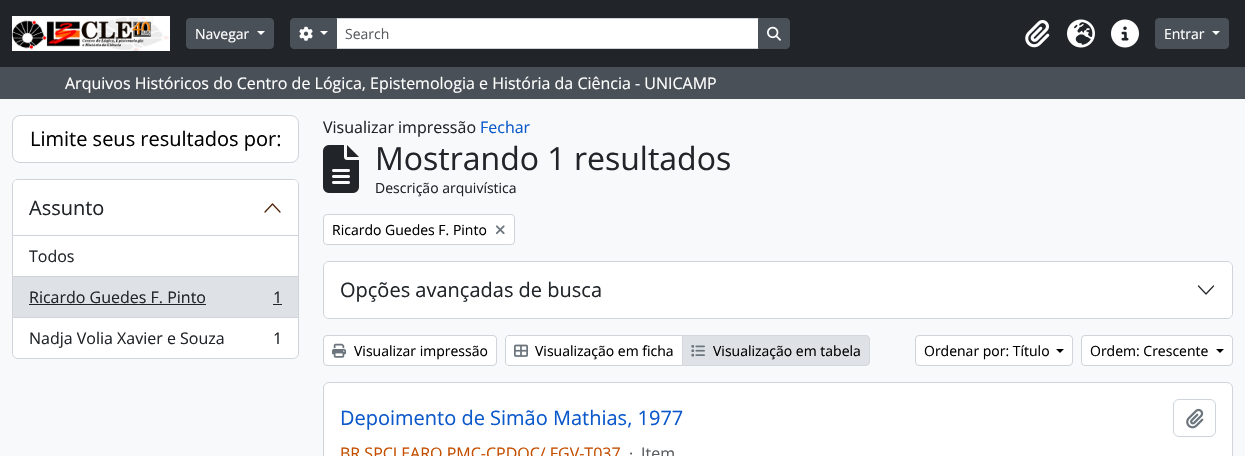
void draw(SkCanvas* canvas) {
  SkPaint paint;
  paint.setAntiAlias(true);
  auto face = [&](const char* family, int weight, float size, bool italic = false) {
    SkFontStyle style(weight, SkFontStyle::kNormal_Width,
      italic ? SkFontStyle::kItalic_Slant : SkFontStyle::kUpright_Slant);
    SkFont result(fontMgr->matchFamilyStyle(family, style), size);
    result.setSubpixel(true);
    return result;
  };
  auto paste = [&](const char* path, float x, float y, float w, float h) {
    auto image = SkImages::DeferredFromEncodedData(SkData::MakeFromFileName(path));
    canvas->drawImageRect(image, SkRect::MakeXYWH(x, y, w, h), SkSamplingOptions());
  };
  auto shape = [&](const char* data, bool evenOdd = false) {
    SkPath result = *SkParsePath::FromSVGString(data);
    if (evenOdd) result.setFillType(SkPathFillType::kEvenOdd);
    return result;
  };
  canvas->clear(0xfff8f9fa);
  paint.setColor(0xff212529);
  canvas->drawRect(SkRect::MakeXYWH(0, 0, 1245, 67), paint);
  paste("img/1.png", 12, 16, 158, 35);
  paint.setColor(0xff495057);
  canvas->drawRoundRect(SkRect::MakeXYWH(186.5f, 18.5f, 87, 30), 3.5f, 3.5f, paint);
  paint.setStroke(true);
  paint.setStrokeWidth(1);
  canvas->drawRoundRect(SkRect::MakeXYWH(186.5f, 18.5f, 87, 30), 3.5f, 3.5f, paint);
  paint.setStroke(false);
  paint.setColor(0xffffffff);
  canvas->drawPath(shape("M257 31H265L261 35Z"), paint);
  canvas->drawRect(SkRect::MakeXYWH(336.5f, 18.5f, 422, 30), paint);
  paint.setStroke(true);
  paint.setColor(0xffced4da);
  canvas->drawRect(SkRect::MakeXYWH(336.5f, 18.5f, 422, 30), paint);
  paint.setStroke(false);
  paint.setColor(0xff495057);
  canvas->drawPath(shape("M294 18.5H336.5V48.5H294C292 48.5 290.5 47 290.5 45V22C290.5 20 292 18.5 294 18.5Z"), paint);
  paint.setStroke(true);
  canvas->drawPath(shape("M294 18.5H336.5V48.5H294C292 48.5 290.5 47 290.5 45V22C290.5 20 292 18.5 294 18.5Z"), paint);
  paste("img/2.png", 299, 26, 14, 15);
  paint.setStroke(false);
  paint.setColor(0xffffffff);
  canvas->drawPath(shape("M320 31H328L324 35Z"), paint);
  paint.setColor(0xff495057);
  canvas->drawPath(shape("M758.5 18.5H786C788 18.5 789.5 20 789.5 22V45C789.5 47 788 48.5 786 48.5H758.5Z"), paint);
  paint.setStroke(true);
  canvas->drawPath(shape("M758.5 18.5H786C788 18.5 789.5 20 789.5 22V45C789.5 47 788 48.5 786 48.5H758.5Z"), paint);
  paste("img/3.png", 767, 26, 14, 15);
  paste("img/4.png", 1025, 20, 25, 28);
  paste("img/5.png", 1067, 19, 28, 29);
  paste("img/6.png", 1111, 19, 28, 29);
  paint.setStroke(false);
  canvas->drawRoundRect(SkRect::MakeXYWH(1155.5f, 18.5f, 73, 30), 3.5f, 3.5f, paint);
  paint.setStroke(true);
  canvas->drawRoundRect(SkRect::MakeXYWH(1155.5f, 18.5f, 73, 30), 3.5f, 3.5f, paint);
  paint.setStroke(false);
  paint.setColor(0xffffffff);
  canvas->drawPath(shape("M1212 31H1220L1216 35Z"), paint);
  paint.setColor(0xff495057);
  canvas->drawRect(SkRect::MakeXYWH(0, 67, 1245, 32), paint);
  paint.setColor(0xffffffff);
  canvas->drawRoundRect(SkRect::MakeXYWH(12.5f, 115.5f, 286, 47), 7.5f, 7.5f, paint);
  paint.setStroke(true);
  paint.setColor(0xffced4da);
  canvas->drawRoundRect(SkRect::MakeXYWH(12.5f, 115.5f, 286, 47), 7.5f, 7.5f, paint);
  paint.setStroke(false);
  paint.setColor(0xffffffff);
  canvas->drawRoundRect(SkRect::MakeXYWH(12.5f, 179.5f, 286, 179), 5.5f, 5.5f, paint);
  paint.setStroke(true);
  paint.setColor(0xffced4da);
  canvas->drawRoundRect(SkRect::MakeXYWH(12.5f, 179.5f, 286, 179), 5.5f, 5.5f, paint);
  paint.setStroke(false);
  paint.setColor(0xffffffff);
  canvas->drawPath(shape("M18 180H293C296 180 298 182 298 185V236H13V185C13 182 15 180 18 180Z"), paint);
  paint.setColor(0xffced4da);
  canvas->drawRect(SkRect::MakeXYWH(13, 235, 285, 1), paint);
  paint.setStroke(true);
  paint.setStrokeWidth(1.2f);
  paint.setStrokeCap(SkPaint::kRound_Cap);
  paint.setStrokeJoin(SkPaint::kRound_Join);
  paint.setColor(0xff4e1f00);
  canvas->drawPath(shape("M280 212L272.5 204L265 212"), paint);
  paint.setStroke(false);
  {
    const struct { float x, y, w, h; SkColor color; } items[] = {
      {13, 276, 285, 1, 0xffced4da},
      {13, 277, 285, 40, 0xffdee2e6},
      {13, 317, 285, 1, 0xffced4da},
      {29, 304, 177, 1, 0xff212529},
      {273, 304, 9, 1, 0xff212529},
    };
    for (auto [x, y, w, h, color] : items) {
      paint.setColor(color);
      canvas->drawRect(SkRect::MakeXYWH(x, y, w, h), paint);
    }
  }
  paint.setColor(0xffffffff);
  canvas->drawPath(shape("M13 318H298V352C298 355.5 295.5 358 292 358H19C15.5 358 13 355.5 13 352Z"), paint);
  paste("img/7.png", 323, 145, 36, 48);
  canvas->drawRoundRect(SkRect::MakeXYWH(323.5f, 214.5f, 191, 30), 3.5f, 3.5f, paint);
  paint.setStroke(true);
  paint.setStrokeWidth(1);
  paint.setStrokeCap(SkPaint::kButt_Cap);
  paint.setStrokeJoin(SkPaint::kMiter_Join);
  paint.setColor(0xffced4da);
  canvas->drawRoundRect(SkRect::MakeXYWH(323.5f, 214.5f, 191, 30), 3.5f, 3.5f, paint);
  paste("img/8.png", 495, 225, 10, 10);
  canvas->drawRoundRect(SkRect::MakeXYWH(323.5f, 261.5f, 909, 57), 5.5f, 5.5f, paint);
  paint.setStroke(false);
  paint.setColor(0xffffffff);
  canvas->drawRoundRect(SkRect::MakeXYWH(324, 262, 908, 56), 5, 5, paint);
  paint.setStroke(true);
  paint.setStrokeWidth(1.2f);
  paint.setStrokeCap(SkPaint::kRound_Cap);
  paint.setStrokeJoin(SkPaint::kRound_Join);
  paint.setColor(0xff212529);
  canvas->drawPath(shape("M1198.5 286L1206 294L1213.5 286"), paint);
  paint.setStroke(false);
  paint.setColor(0xffffffff);
  canvas->drawRoundRect(SkRect::MakeXYWH(323.5f, 335.5f, 173, 30), 3.5f, 3.5f, paint);
  paint.setStroke(true);
  paint.setStrokeWidth(1);
  paint.setStrokeCap(SkPaint::kButt_Cap);
  paint.setStrokeJoin(SkPaint::kMiter_Join);
  paint.setColor(0xffced4da);
  canvas->drawRoundRect(SkRect::MakeXYWH(323.5f, 335.5f, 173, 30), 3.5f, 3.5f, paint);
  paste("img/9.png", 332, 343, 14, 15);
  paint.setStroke(false);
  paint.setColor(0xffffffff);
  canvas->drawPath(shape("M509 335.5H682.5V365.5H509C507 365.5 505.5 364 505.5 362V339C505.5 337 507 335.5 509 335.5Z"), paint);
  paint.setStroke(true);
  paint.setColor(0xffced4da);
  canvas->drawPath(shape("M509 335.5H682.5V365.5H509C507 365.5 505.5 364 505.5 362V339C505.5 337 507 335.5 509 335.5Z"), paint);
  paste("img/10.png", 514, 344, 14, 13);
  paint.setStroke(false);
  paint.setColor(0xffdee2e6);
  canvas->drawPath(shape("M682.5 335.5H866C868 335.5 869.5 337 869.5 339V362C869.5 364 868 365.5 866 365.5H682.5Z"), paint);
  paint.setStroke(true);
  paint.setColor(0xffd3d8de);
  canvas->drawPath(shape("M682.5 335.5H866C868 335.5 869.5 337 869.5 339V362C869.5 364 868 365.5 866 365.5H682.5Z"), paint);
  paste("img/11.png", 691, 345, 14, 12);
  paint.setStroke(false);
  paint.setColor(0xffffffff);
  canvas->drawRoundRect(SkRect::MakeXYWH(915.5f, 335.5f, 157, 30), 3.5f, 3.5f, paint);
  paint.setStroke(true);
  paint.setColor(0xffced4da);
  canvas->drawRoundRect(SkRect::MakeXYWH(915.5f, 335.5f, 157, 30), 3.5f, 3.5f, paint);
  paint.setStroke(false);
  paint.setColor(0xff000000);
  canvas->drawPath(shape("M1056 349H1064L1060 353Z"), paint);
  paint.setColor(0xffffffff);
  canvas->drawRoundRect(SkRect::MakeXYWH(1081.5f, 335.5f, 151, 30), 3.5f, 3.5f, paint);
  paint.setStroke(true);
  paint.setColor(0xffced4da);
  canvas->drawRoundRect(SkRect::MakeXYWH(1081.5f, 335.5f, 151, 30), 3.5f, 3.5f, paint);
  paint.setStroke(false);
  paint.setColor(0xff000000);
  canvas->drawPath(shape("M1216 349H1224L1220 353Z"), paint);
  paint.setColor(0xffffffff);
  canvas->drawRoundRect(SkRect::MakeXYWH(323.5f, 382.5f, 909, 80), 5.5f, 5.5f, paint);
  paint.setStroke(true);
  paint.setColor(0xffced4da);
  canvas->drawRoundRect(SkRect::MakeXYWH(323.5f, 382.5f, 909, 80), 5.5f, 5.5f, paint);
  canvas->drawRoundRect(SkRect::MakeXYWH(1173.5f, 399.5f, 42, 37), 5.5f, 5.5f, paint);
  paste("img/12.png", 1186, 408, 18, 21);
  auto f0 = face("Open Sans", 400, 14);
  paint.setStroke(false);
  paint.setColor(0xffffffff);
  canvas->drawString("Navegar", 195, 39, f0, paint);
  paint.setColor(0xff595c5f);
  canvas->drawString("Search", 345, 39, f0, paint);
  paint.setColor(0xffffffff);
  canvas->drawString("Entrar", 1164, 39, f0, paint);
  auto f1 = face("Open Sans", 400, 16);
  canvas->drawString("Arquivos Históricos do Centro de Lógica, Epistemologia e História da Ciência - UNICAMP", 65, 89, f1, paint);
  auto f2 = face("Open Sans", 400, 20);
  paint.setColor(0xff000000);
  canvas->drawString("Limite seus resultados por:", 30, 146, f2, paint);
  paint.setColor(0xff212529);
  canvas->drawString("Assunto", 29, 215, f2, paint);
  {
    const struct { const char* s; float x, y; } items[] = {
      {"Todos", 29, 262},
      {"Ricardo Guedes F. Pinto", 29, 303},
      {"1", 273, 303},
      {"Nadja Volia Xavier e Souza", 29, 344},
      {"1", 273, 344},
      {"Visualizar impressão", 323, 133},
    };
    for (auto [s, x, y] : items) {
      canvas->drawString(s, x, y, f1, paint);
    }
  }
  paint.setColor(0xff0a58ca);
  canvas->drawString("Fechar", 480, 133, f1, paint);
  auto f3 = face("Open Sans", 400, 32);
  paint.setColor(0xff212529);
  canvas->drawString("Mostrando 1 resultados", 375, 170, f3, paint);
  canvas->drawString("Descrição arquivística", 375, 193, f0, paint);
  paint.setColor(0xff000000);
  canvas->drawString("Ricardo Guedes F. Pinto", 332, 235, f0, paint);
  paint.setColor(0xff212529);
  canvas->drawString("Opções avançadas de busca", 340, 297, f2, paint);
  paint.setColor(0xff000000);
  {
    const struct { const char* s; float x, y; } items[] = {
      {"Visualizar impressão", 354, 356},
      {"Visualização em ficha", 535, 356},
      {"Visualização em tabela", 713, 356},
      {"Ordenar por: Título", 924, 356},
      {"Ordem: Crescente", 1090, 356},
    };
    for (auto [s, x, y] : items) {
      canvas->drawString(s, x, y, f0, paint);
    }
  }
  paint.setColor(0xff0a58ca);
  canvas->drawString("Depoimento de Simão Mathias, 1977", 340, 425, f2, paint);
  paint.setColor(0xffc44e00);
  canvas->drawString("BR SPCLEARQ PMC-CPDOC/ FGV-T037", 340, 459, f1, paint);
  paint.setColor(0xff595c5f);
  canvas->drawString("·", 629, 459, f1, paint);
  canvas->drawString("Item", 641, 459, f1, paint);
}
